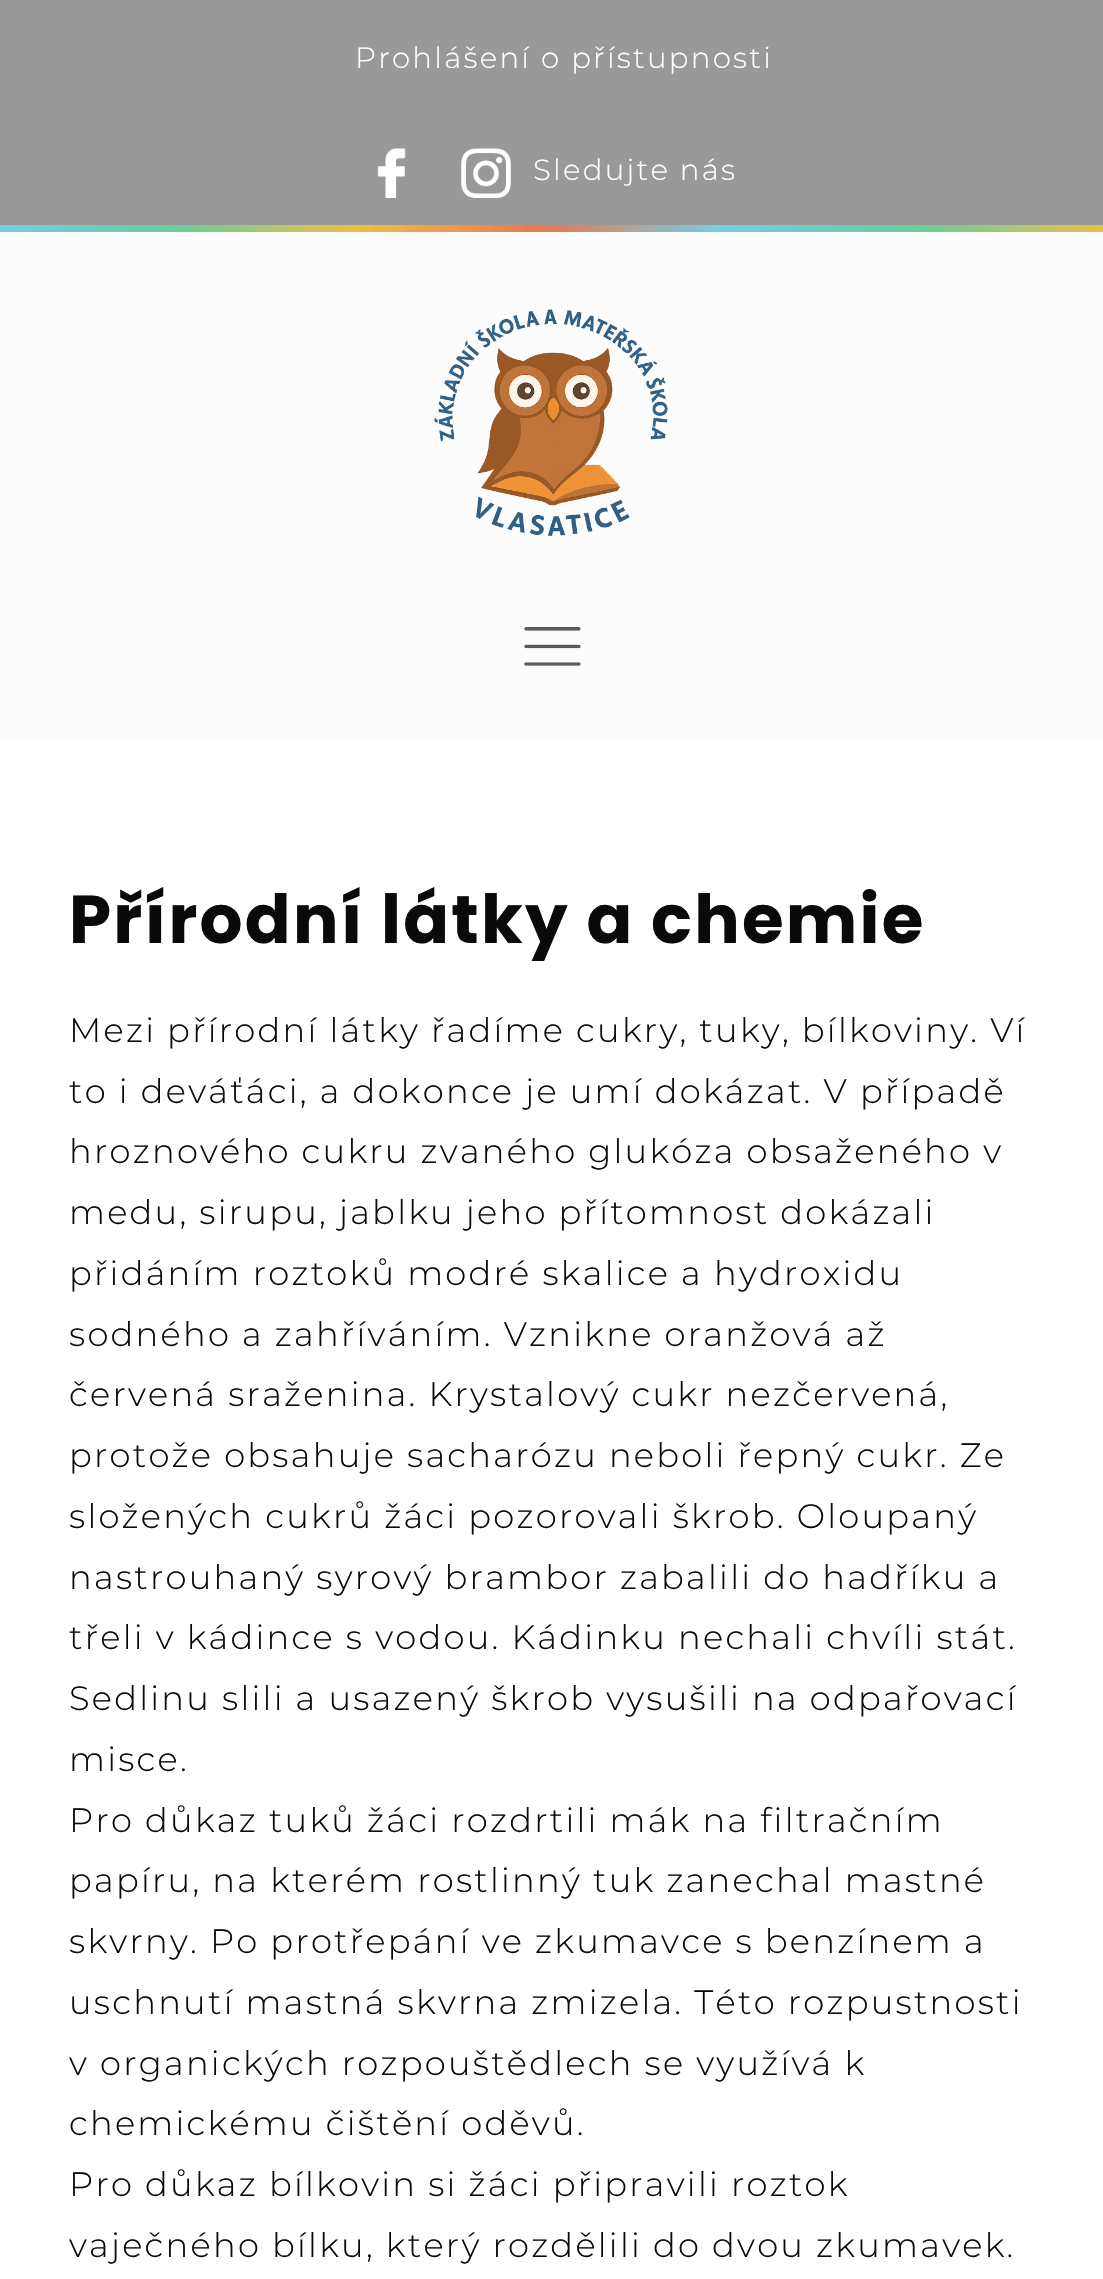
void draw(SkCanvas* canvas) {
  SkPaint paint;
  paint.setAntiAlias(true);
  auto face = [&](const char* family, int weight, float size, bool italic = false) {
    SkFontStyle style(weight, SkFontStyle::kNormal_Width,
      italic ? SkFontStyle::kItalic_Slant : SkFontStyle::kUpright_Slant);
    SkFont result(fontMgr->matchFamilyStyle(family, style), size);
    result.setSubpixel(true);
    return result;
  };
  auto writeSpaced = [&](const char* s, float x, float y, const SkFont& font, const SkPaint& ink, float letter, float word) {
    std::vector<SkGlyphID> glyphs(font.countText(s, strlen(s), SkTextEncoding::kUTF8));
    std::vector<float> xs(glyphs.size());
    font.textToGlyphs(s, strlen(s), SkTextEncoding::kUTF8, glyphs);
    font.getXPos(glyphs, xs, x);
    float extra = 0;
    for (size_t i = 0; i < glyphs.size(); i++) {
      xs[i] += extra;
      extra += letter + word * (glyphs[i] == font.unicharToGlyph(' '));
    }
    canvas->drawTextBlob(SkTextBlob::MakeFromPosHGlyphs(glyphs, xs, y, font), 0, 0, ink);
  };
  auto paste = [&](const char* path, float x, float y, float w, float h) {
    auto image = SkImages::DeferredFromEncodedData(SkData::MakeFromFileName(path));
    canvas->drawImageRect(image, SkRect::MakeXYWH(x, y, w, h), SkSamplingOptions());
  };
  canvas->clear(0xffffffff);
  paint.setColor(0xff999999);
  canvas->drawRect(SkRect::MakeXYWH(0, 0, 1103, 225), paint);
  paste("img/1.png", 377, 148, 29, 50);
  paste("img/2.png", 461, 148, 50, 50);
  paint.setColor(0xfffcfcfc);
  canvas->drawRect(SkRect::MakeXYWH(0, 232, 1103, 506), paint);
  {
    const SkColor colors[] = {0xff74cee4, 0xff66ce9c, 0xffedbf47, 0xffec774b, 0xff74cee4, 0xff66ce9c, 0xffedbf47};
    const float stops[] = {0, 0.16f, 0.32f, 0.49f, 0.65f, 0.83f, 1};
    const SkPoint ends[] = {{0, 228}, {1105, 228}};
    paint.setShader(SkGradientShader::MakeLinear(ends, colors, stops, 7, SkTileMode::kClamp));
    paint.setAlpha(255);
  }
  canvas->drawRect(SkRect::MakeXYWH(0, 225, 1103, 7), paint);
  paste("img/3.png", 434, 309, 234, 227);
  paste("img/4.png", 524, 627, 57, 39);
  auto f0 = face("Montserrat", 300, 29.25f);
  paint.setShader(nullptr);
  paint.setColor(0xffffffff);
  writeSpaced("Prohlášení o přístupnosti", 355, 68, f0, paint, 2.25f, 0);
  writeSpaced("Sledujte nás", 533, 180, f0, paint, 2.25f, 0);
  auto f1 = face("Poppins", 700, 67.5f);
  paint.setColor(0xff0a0a0a);
  writeSpaced("Přírodní látky a chemie", 69, 943, f1, paint, 2.25f, 0);
  auto f2 = face("Montserrat", 300, 33.75f);
  {
    const struct { const char* s; float x, y; } items[] = {
      {"Mezi přírodní látky řadíme cukry, tuky, bílkoviny. Ví", 69, 1042},
      {"to i deváťáci, a dokonce je umí dokázat. V případě", 69, 1103},
      {"hroznového cukru zvaného glukóza obsaženého v", 69, 1163},
      {"medu, sirupu, jablku jeho přítomnost dokázali", 69, 1224},
      {"přidáním roztoků modré skalice a hydroxidu", 69, 1285},
      {"sodného a zahříváním. Vznikne oranžová až", 69, 1346},
      {"červená sraženina. Krystalový cukr nezčervená,", 69, 1406},
      {"protože obsahuje sacharózu neboli řepný cukr. Ze", 69, 1467},
      {"složených cukrů žáci pozorovali škrob. Oloupaný", 69, 1528},
      {"nastrouhaný syrový brambor zabalili do hadříku a", 69, 1589},
      {"třeli v kádince s vodou. Kádinku nechali chvíli stát.", 69, 1649},
      {"Sedlinu slili a usazený škrob vysušili na odpařovací", 69, 1710},
      {"misce.", 69, 1771},
      {"Pro důkaz tuků žáci rozdrtili mák na filtračním", 69, 1832},
      {"papíru, na kterém rostlinný tuk zanechal mastné", 69, 1892},
      {"skvrny. Po protřepání ve zkumavce s benzínem a", 69, 1953},
      {"uschnutí mastná skvrna zmizela. Této rozpustnosti", 69, 2014},
      {"v organických rozpouštědlech se využívá k", 69, 2075},
      {"chemickému čištění oděvů.", 69, 2135},
      {"Pro důkaz bílkovin si žáci připravili roztok", 69, 2196},
      {"vaječného bílku, který rozdělili do dvou zkumavek.", 69, 2257},
    };
    for (auto [s, x, y] : items) {
      writeSpaced(s, x, y, f2, paint, 2.25f, 0);
    }
  }
}
